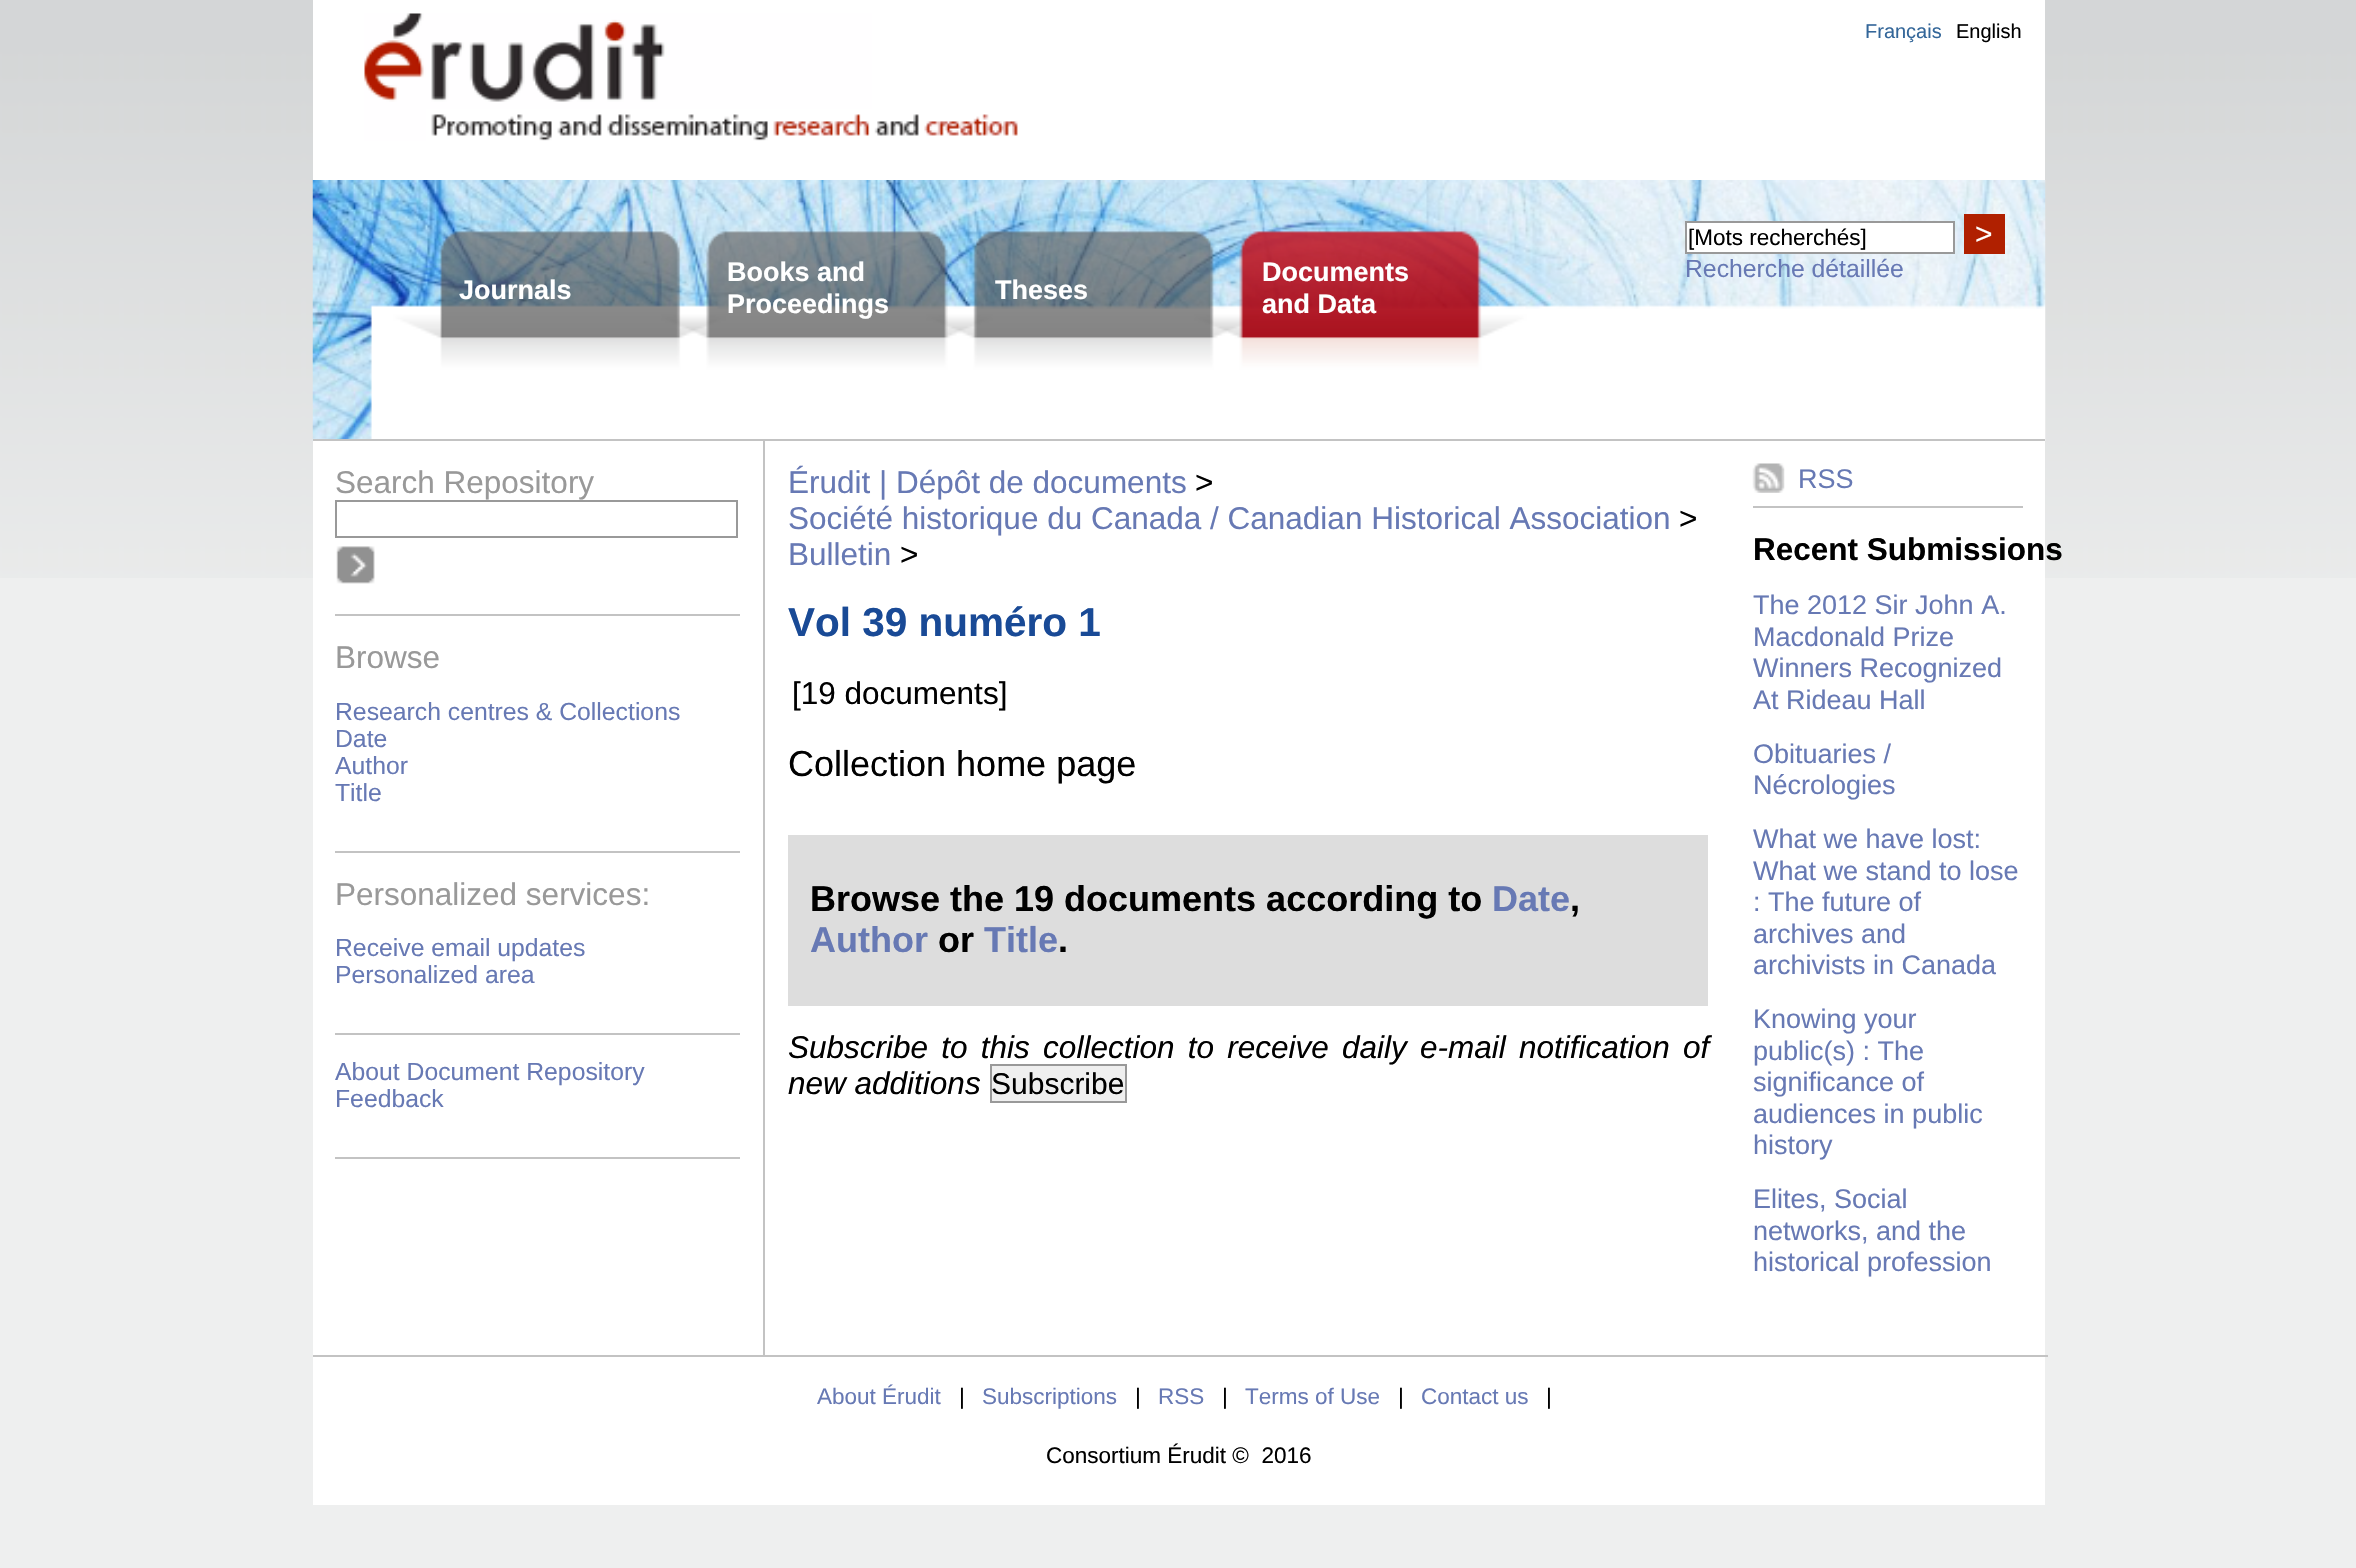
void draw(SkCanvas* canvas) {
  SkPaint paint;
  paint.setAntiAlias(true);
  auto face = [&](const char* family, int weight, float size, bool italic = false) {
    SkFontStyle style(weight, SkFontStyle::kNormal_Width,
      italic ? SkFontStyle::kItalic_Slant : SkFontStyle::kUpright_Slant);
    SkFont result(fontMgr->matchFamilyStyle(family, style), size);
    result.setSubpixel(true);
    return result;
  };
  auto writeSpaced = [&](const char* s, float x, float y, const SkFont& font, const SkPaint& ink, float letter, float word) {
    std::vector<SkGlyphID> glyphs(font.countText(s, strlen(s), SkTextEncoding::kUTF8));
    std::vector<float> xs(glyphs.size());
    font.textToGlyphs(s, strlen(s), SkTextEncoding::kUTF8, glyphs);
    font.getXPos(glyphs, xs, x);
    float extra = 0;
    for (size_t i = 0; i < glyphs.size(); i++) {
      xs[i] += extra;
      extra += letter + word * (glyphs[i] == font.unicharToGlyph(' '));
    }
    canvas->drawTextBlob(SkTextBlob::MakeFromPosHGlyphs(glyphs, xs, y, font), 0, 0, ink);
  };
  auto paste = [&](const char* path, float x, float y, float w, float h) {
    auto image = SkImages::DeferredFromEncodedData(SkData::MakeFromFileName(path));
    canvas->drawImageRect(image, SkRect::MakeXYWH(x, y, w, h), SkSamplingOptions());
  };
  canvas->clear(0xffeeefef);
  paste("img/1.png", 0, 0, 2356, 578);
  paint.setColor(0xffffffff);
  canvas->drawRect(SkRect::MakeXYWH(313, 0, 1732, 180), paint);
  paste("img/2.png", 364, 13, 654, 128);
  paste("img/3.png", 312, 180, 1734, 261);
  paint.setColor(0xffc3c3c3);
  canvas->drawRect(SkRect::MakeXYWH(313, 439, 1732, 2), paint);
  paint.setColor(0xffffffff);
  canvas->drawRect(SkRect::MakeXYWH(1686, 222, 268, 31), paint);
  paint.setStroke(true);
  paint.setStrokeWidth(2);
  paint.setColor(0xff999999);
  canvas->drawRect(SkRect::MakeXYWH(1686, 222, 268, 31), paint);
  paint.setStroke(false);
  paint.setColor(0xffb02000);
  canvas->drawRect(SkRect::MakeXYWH(1964, 214, 41, 40), paint);
  paint.setColor(0xffffffff);
  canvas->drawRect(SkRect::MakeXYWH(313, 441, 1732, 1064), paint);
  paint.setStroke(true);
  paint.setColor(0xff999999);
  canvas->drawRect(SkRect::MakeXYWH(336, 501, 401, 36), paint);
  paste("img/4.png", 336, 546, 39, 38);
  paint.setStroke(false);
  {
    const struct { float x, y, w, h; SkColor color; } items[] = {
      {335, 614, 405, 2, 0xffc3c3c3},
      {335, 851, 405, 2, 0xffc3c3c3},
      {335, 1033, 405, 2, 0xffc3c3c3},
      {335, 1157, 405, 2, 0xffc3c3c3},
      {313, 1355, 1735, 2, 0xffc3c3c3},
      {763, 441, 2, 916, 0xffc3c3c3},
      {788, 835, 920, 171, 0xffdddddd},
      {1753, 506, 270, 2, 0xffc3c3c3},
    };
    for (auto [x, y, w, h, color] : items) {
      paint.setColor(color);
      canvas->drawRect(SkRect::MakeXYWH(x, y, w, h), paint);
    }
  }
  paste("img/5.png", 1752, 463, 33, 30);
  auto f0 = face("Liberation Sans", 400, 20);
  paint.setColor(0xff336699);
  canvas->drawString("Français", 1865, 38, f0, paint);
  paint.setColor(0xff000000);
  canvas->drawString("English", 1956, 38, f0, paint);
  auto f1 = face("Liberation Sans", 400, 22.5f);
  canvas->drawString("[Mots recherchés]", 1688, 245, f1, paint);
  auto f2 = face("Liberation Sans", 400, 30);
  paint.setColor(0xffffffff);
  canvas->drawString(">", 1975, 244, f2, paint);
  auto f3 = face("Liberation Sans", 400, 24.75f);
  paint.setColor(0xff6779b4);
  canvas->drawString("Recherche détaillée", 1685, 277, f3, paint);
  auto f4 = face("Liberation Sans", 700, 27);
  paint.setColor(0xffffffff);
  {
    const struct { const char* s; float x, y; } items[] = {
      {"Journals", 459, 299},
      {"Books and", 727, 281},
      {"Proceedings", 727, 313},
      {"Theses", 995, 299},
      {"Documents", 1262, 281},
      {"and Data", 1262, 313},
    };
    for (auto [s, x, y] : items) {
      canvas->drawString(s, x, y, f4, paint);
    }
  }
  auto f5 = face("Liberation Sans", 400, 31.5f);
  paint.setColor(0xff999999);
  canvas->drawString("Search Repository", 335, 493, f5, paint);
  canvas->drawString("Browse", 335, 668, f5, paint);
  paint.setColor(0xff6779b4);
  {
    const struct { const char* s; float x, y; } items[] = {
      {"Research centres & Collections", 335, 720},
      {"Date", 335, 747},
      {"Author", 335, 774},
      {"Title", 335, 801},
    };
    for (auto [s, x, y] : items) {
      canvas->drawString(s, x, y, f3, paint);
    }
  }
  paint.setColor(0xff999999);
  canvas->drawString("Personalized services:", 335, 905, f5, paint);
  paint.setColor(0xff6779b4);
  {
    const struct { const char* s; float x, y; } items[] = {
      {"Receive email updates", 335, 956},
      {"Personalized area", 335, 983},
      {"About Document Repository", 335, 1080},
      {"Feedback", 335, 1107},
    };
    for (auto [s, x, y] : items) {
      canvas->drawString(s, x, y, f3, paint);
    }
  }
  canvas->drawString("Érudit | Dépôt de documents", 788, 493, f5, paint);
  paint.setColor(0xff000000);
  canvas->drawString(">", 1195, 493, f5, paint);
  paint.setColor(0xff6779b4);
  canvas->drawString("Société historique du Canada / Canadian Historical Association", 788, 529, f5, paint);
  paint.setColor(0xff000000);
  canvas->drawString(">", 1679, 529, f5, paint);
  paint.setColor(0xff6779b4);
  canvas->drawString("Bulletin", 788, 565, f5, paint);
  paint.setColor(0xff000000);
  canvas->drawString(">", 900, 565, f5, paint);
  auto f6 = face("Liberation Sans", 700, 40.5f);
  paint.setColor(0xff194a96);
  canvas->drawString("Vol 39 numéro 1", 788, 636, f6, paint);
  paint.setColor(0xff000000);
  canvas->drawString("[19 documents]", 792, 704, f5, paint);
  auto f7 = face("Liberation Sans", 400, 36);
  canvas->drawString("Collection home page", 788, 776, f7, paint);
  auto f8 = face("Liberation Sans", 700, 36);
  canvas->drawString("Browse the 19 documents according to", 810, 911, f8, paint);
  paint.setColor(0xff6779b4);
  canvas->drawString("Date", 1492, 911, f8, paint);
  paint.setColor(0xff000000);
  canvas->drawString(",", 1570, 911, f8, paint);
  paint.setColor(0xff6779b4);
  canvas->drawString("Author", 810, 952, f8, paint);
  paint.setColor(0xff000000);
  canvas->drawString("or", 938, 952, f8, paint);
  paint.setColor(0xff6779b4);
  canvas->drawString("Title", 984, 952, f8, paint);
  paint.setColor(0xff000000);
  canvas->drawString(".", 1058, 952, f8, paint);
  auto f9 = face("Liberation Sans", 400, 31.5f, true);
  writeSpaced("Subscribe to this collection to receive daily e-mail notification of", 788, 1058, f9, paint, 0, 4.5f);
  canvas->drawString("new additions", 788, 1094, f9, paint);
  paint.setColor(0xffefefef);
  canvas->drawRect(SkRect::MakeXYWH(991, 1065, 135, 37), paint);
  paint.setStroke(true);
  paint.setColor(0xff999999);
  canvas->drawRect(SkRect::MakeXYWH(991, 1065, 135, 37), paint);
  paint.setStroke(false);
  paint.setColor(0xff000000);
  canvas->drawString("Subscribe", 991, 1094, f2, paint);
  auto f10 = face("Liberation Sans", 400, 27);
  paint.setColor(0xff6779b4);
  canvas->drawString("RSS", 1798, 488, f10, paint);
  auto f11 = face("Liberation Sans", 700, 31.5f);
  paint.setColor(0xff000000);
  canvas->drawString("Recent Submissions", 1753, 560, f11, paint);
  paint.setColor(0xff6779b4);
  {
    const struct { const char* s; float x, y; } items[] = {
      {"The 2012 Sir John A.", 1753, 614},
      {"Macdonald Prize", 1753, 646},
      {"Winners Recognized", 1753, 677},
      {"At Rideau Hall", 1753, 709},
      {"Obituaries /", 1753, 763},
      {"Nécrologies", 1753, 794},
      {"What we have lost:", 1753, 848},
      {"What we stand to lose", 1753, 880},
      {": The future of", 1753, 911},
      {"archives and", 1753, 943},
      {"archivists in Canada", 1753, 974},
      {"Knowing your", 1753, 1028},
      {"public(s) : The", 1753, 1060},
      {"significance of", 1753, 1091},
      {"audiences in public", 1753, 1123},
      {"history", 1753, 1154},
      {"Elites, Social", 1753, 1208},
      {"networks, and the", 1753, 1240},
      {"historical profession", 1753, 1271},
    };
    for (auto [s, x, y] : items) {
      canvas->drawString(s, x, y, f10, paint);
    }
  }
  canvas->drawString("About Érudit", 817, 1404, f1, paint);
  paint.setColor(0xff000000);
  canvas->drawString("|", 959, 1404, f1, paint);
  paint.setColor(0xff6779b4);
  canvas->drawString("Subscriptions", 982, 1404, f1, paint);
  paint.setColor(0xff000000);
  canvas->drawString("|", 1135, 1404, f1, paint);
  paint.setColor(0xff6779b4);
  canvas->drawString("RSS", 1158, 1404, f1, paint);
  paint.setColor(0xff000000);
  canvas->drawString("|", 1222, 1404, f1, paint);
  paint.setColor(0xff6779b4);
  canvas->drawString("Terms of Use", 1245, 1404, f1, paint);
  paint.setColor(0xff000000);
  canvas->drawString("|", 1398, 1404, f1, paint);
  paint.setColor(0xff6779b4);
  canvas->drawString("Contact us", 1421, 1404, f1, paint);
  paint.setColor(0xff000000);
  canvas->drawString("|", 1546, 1404, f1, paint);
  canvas->drawString("Consortium Érudit ©  2016", 1046, 1463, f1, paint);
}
